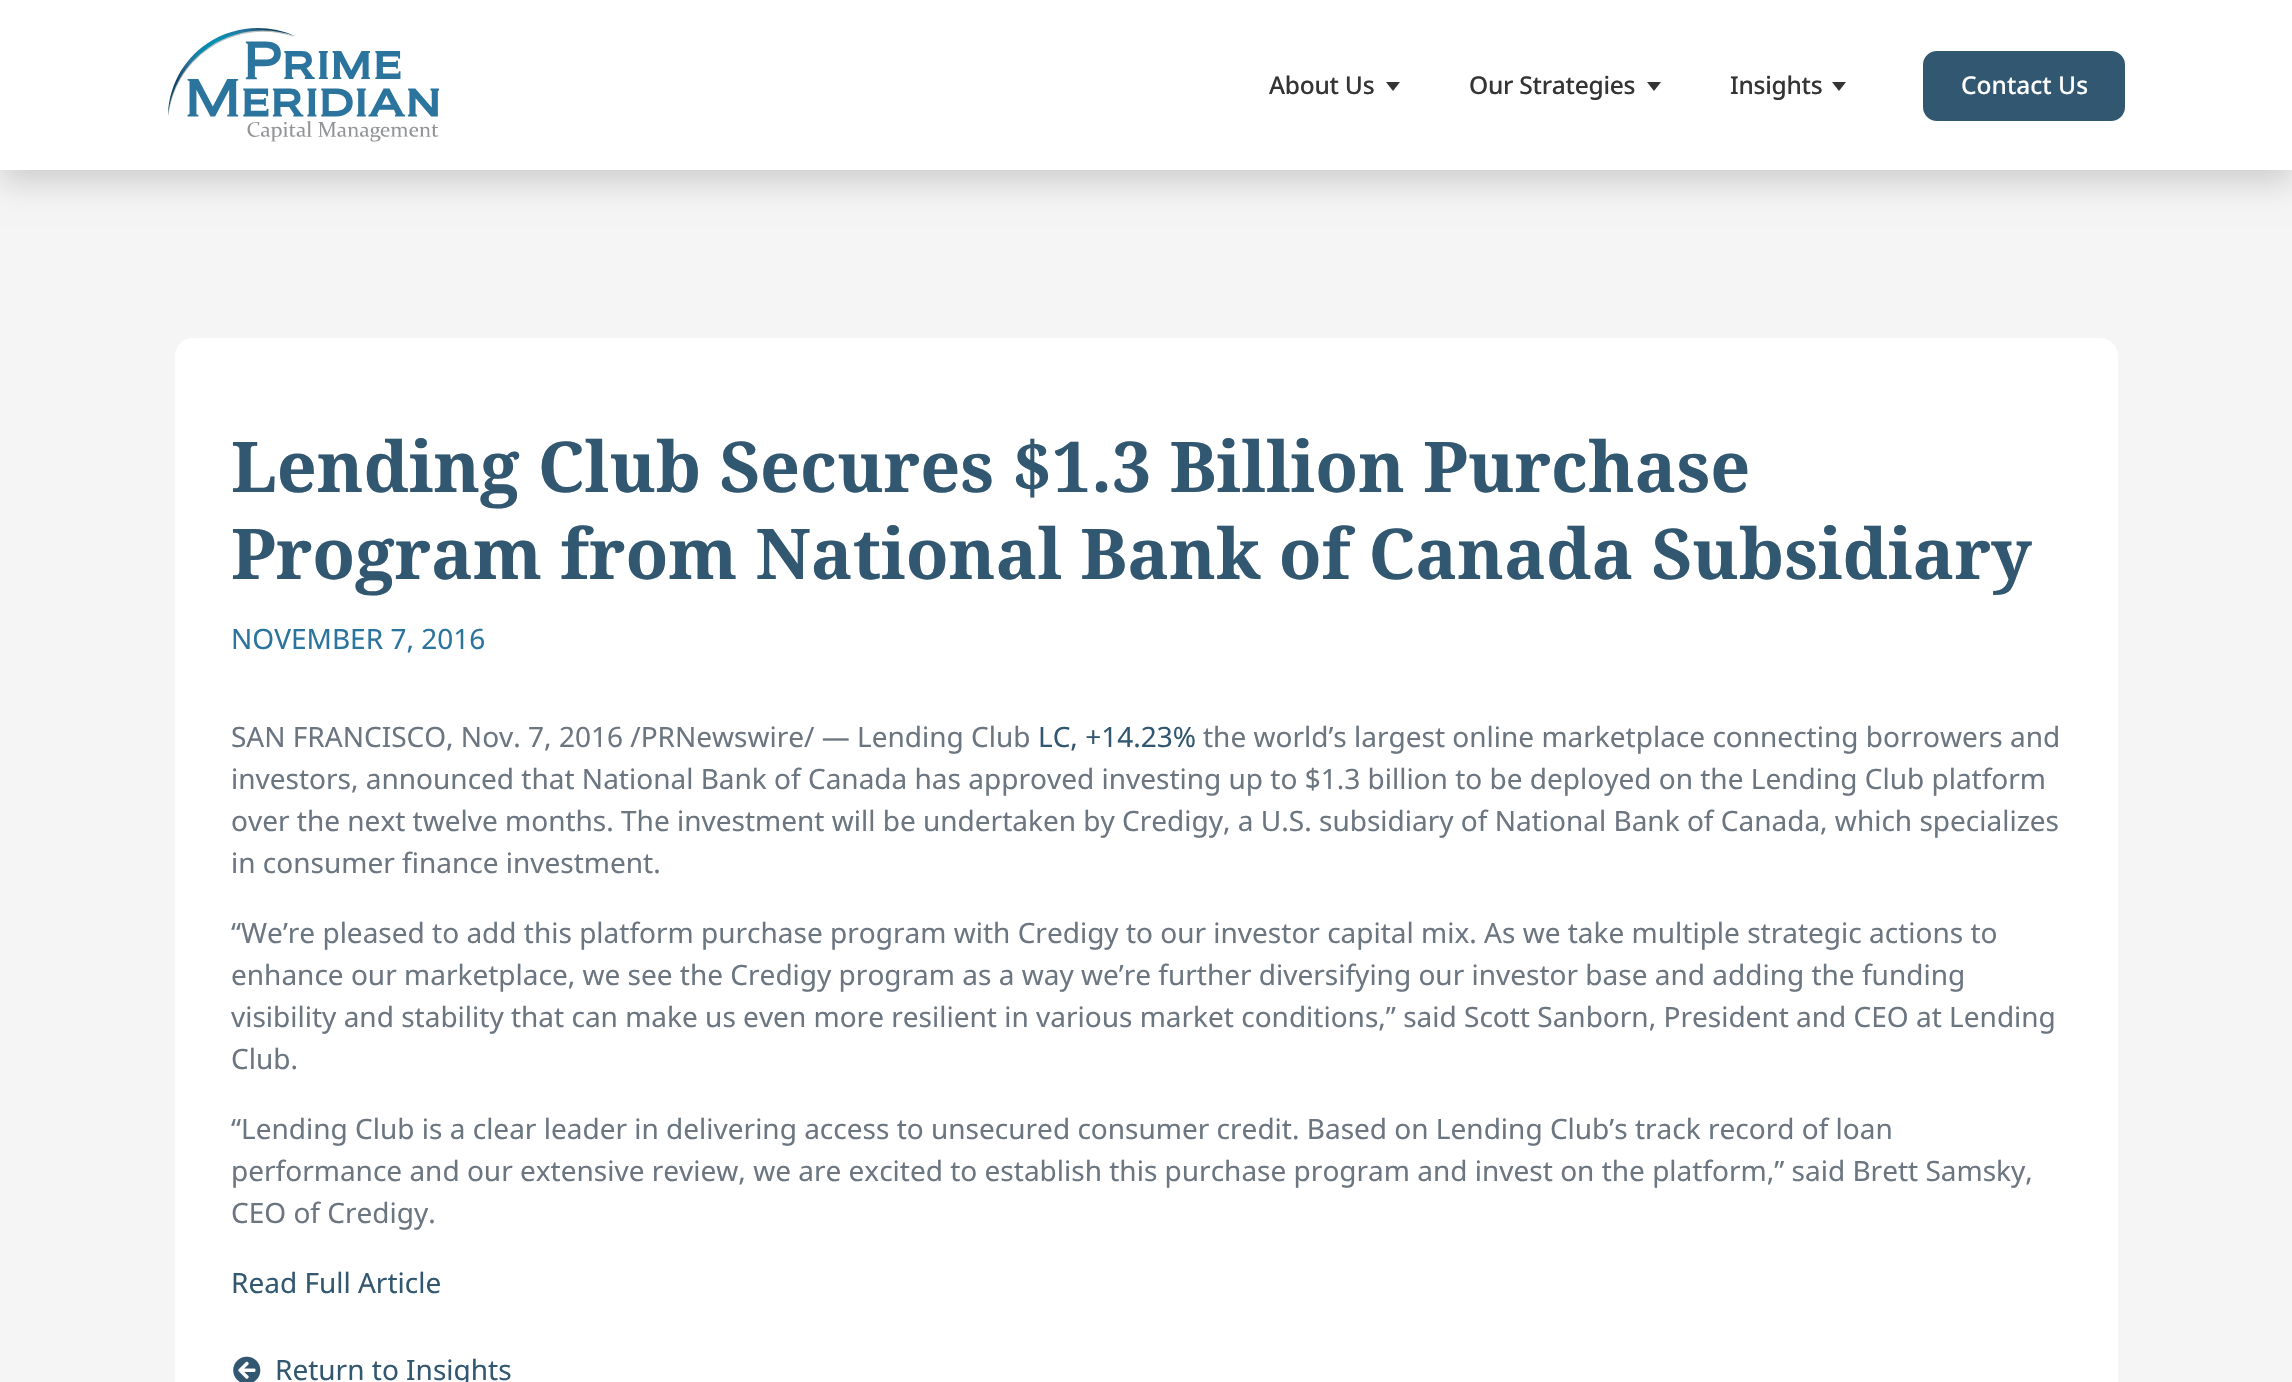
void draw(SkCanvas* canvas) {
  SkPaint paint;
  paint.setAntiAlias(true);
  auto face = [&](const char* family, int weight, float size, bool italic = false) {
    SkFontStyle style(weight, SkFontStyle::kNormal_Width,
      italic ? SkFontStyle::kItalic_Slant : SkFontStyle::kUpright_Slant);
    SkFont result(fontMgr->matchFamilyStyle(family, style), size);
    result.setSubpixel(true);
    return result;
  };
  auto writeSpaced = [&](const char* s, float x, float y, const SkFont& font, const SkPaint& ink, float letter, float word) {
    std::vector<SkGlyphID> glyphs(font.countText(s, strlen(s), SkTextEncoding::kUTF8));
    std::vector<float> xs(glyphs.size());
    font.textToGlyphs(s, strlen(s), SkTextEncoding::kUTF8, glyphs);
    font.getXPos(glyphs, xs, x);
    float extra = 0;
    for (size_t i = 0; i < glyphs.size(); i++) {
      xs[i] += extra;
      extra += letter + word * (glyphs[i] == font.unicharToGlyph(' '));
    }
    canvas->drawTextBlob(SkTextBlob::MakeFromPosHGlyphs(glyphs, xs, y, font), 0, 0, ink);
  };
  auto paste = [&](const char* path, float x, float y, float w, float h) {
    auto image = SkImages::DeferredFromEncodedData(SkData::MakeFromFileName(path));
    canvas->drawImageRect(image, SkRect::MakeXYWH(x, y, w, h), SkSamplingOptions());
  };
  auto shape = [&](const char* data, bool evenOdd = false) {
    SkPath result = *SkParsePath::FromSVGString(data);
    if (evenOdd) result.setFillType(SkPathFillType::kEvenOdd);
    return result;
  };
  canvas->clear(0xfff5f5f5);
  paint.setColor(0x26000000);
  paint.setMaskFilter(SkMaskFilter::MakeBlur(kNormal_SkBlurStyle, 14));
  canvas->drawRect(SkRect::MakeXYWH(0, 14, 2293, 170), paint);
  paint.setMaskFilter(nullptr);
  paint.setColor(0xffffffff);
  canvas->drawRect(SkRect::MakeXYWH(0, 0, 2292, 170), paint);
  paste("img/1.png", 168, 28, 271, 114);
  paint.setColor(0xff343434);
  canvas->drawPath(shape("M1386 82H1400L1393 91Z"), paint);
  canvas->drawPath(shape("M1647 82H1661L1654 91Z"), paint);
  canvas->drawPath(shape("M1832 82H1846L1839 91Z"), paint);
  paint.setColor(0xff325771);
  canvas->drawRoundRect(SkRect::MakeXYWH(1924, 52, 200, 68), 13, 13, paint);
  paint.setStroke(true);
  paint.setStrokeWidth(2);
  canvas->drawRoundRect(SkRect::MakeXYWH(1924, 52, 200, 68), 13, 13, paint);
  paint.setStroke(false);
  paint.setColor(0xffffffff);
  canvas->drawRoundRect(SkRect::MakeXYWH(175, 338, 1943, 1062), 18, 18, paint);
  paste("img/2.png", 233, 1356, 28, 26);
  auto f0 = face("Noto Sans", 500, 24.5f);
  paint.setColor(0xff343434);
  {
    const struct { const char* s; float x, y; } items[] = {
      {"About Us", 1269, 94},
      {"Our Strategies", 1469, 94},
      {"Insights", 1730, 94},
    };
    for (auto [s, x, y] : items) {
      writeSpaced(s, x, y, f0, paint, -0.25f, 0);
    }
  }
  paint.setColor(0xffffffff);
  canvas->drawString("Contact Us", 1961, 94, f0, paint);
  auto f1 = face("Noto Serif", 700, 70);
  paint.setColor(0xff325771);
  canvas->drawString("Lending Club Secures $1.3 Billion Purchase", 231, 492, f1, paint);
  canvas->drawString("Program from National Bank of Canada Subsidiary", 231, 579, f1, paint);
  auto f2 = face("Noto Sans", 400, 28);
  paint.setColor(0xff2a749e);
  canvas->drawString("NOVEMBER 7, 2016", 231, 649, f2, paint);
  paint.setColor(0xff6b7681);
  canvas->drawString("SAN FRANCISCO, Nov. 7, 2016 /PRNewswire/ — Lending Club", 231, 747, f2, paint);
  paint.setColor(0xff325771);
  canvas->drawString("LC, +14.23%", 1038, 747, f2, paint);
  paint.setColor(0xff6b7681);
  {
    const struct { const char* s; float x, y; } items[] = {
      {"the world’s largest online marketplace connecting borrowers and", 1203, 747},
      {"investors, announced that National Bank of Canada has approved investing up to $1.3 billion to be deployed on the Lending Club platform", 231, 789},
      {"over the next twelve months. The investment will be undertaken by Credigy, a U.S. subsidiary of National Bank of Canada, which specializes", 231, 831},
      {"in consumer finance investment.", 231, 873},
      {"“We’re pleased to add this platform purchase program with Credigy to our investor capital mix. As we take multiple strategic actions to", 231, 943},
      {"enhance our marketplace, we see the Credigy program as a way we’re further diversifying our investor base and adding the funding", 231, 985},
      {"visibility and stability that can make us even more resilient in various market conditions,” said Scott Sanborn, President and CEO at Lending", 231, 1027},
      {"Club.", 231, 1069},
      {"“Lending Club is a clear leader in delivering access to unsecured consumer credit. Based on Lending Club’s track record of loan", 231, 1139},
      {"performance and our extensive review, we are excited to establish this purchase program and invest on the platform,” said Brett Samsky,", 231, 1181},
      {"CEO of Credigy.", 231, 1223},
    };
    for (auto [s, x, y] : items) {
      canvas->drawString(s, x, y, f2, paint);
    }
  }
  paint.setColor(0xff325771);
  canvas->drawString("Read Full Article", 231, 1293, f2, paint);
  canvas->drawString("Return to Insights", 275, 1380, f2, paint);
}
